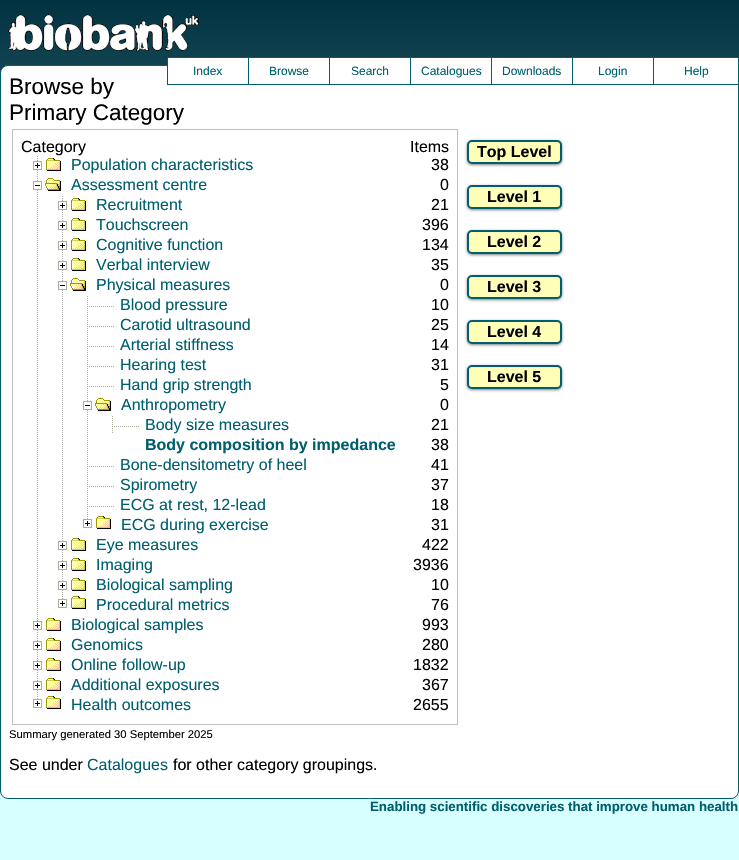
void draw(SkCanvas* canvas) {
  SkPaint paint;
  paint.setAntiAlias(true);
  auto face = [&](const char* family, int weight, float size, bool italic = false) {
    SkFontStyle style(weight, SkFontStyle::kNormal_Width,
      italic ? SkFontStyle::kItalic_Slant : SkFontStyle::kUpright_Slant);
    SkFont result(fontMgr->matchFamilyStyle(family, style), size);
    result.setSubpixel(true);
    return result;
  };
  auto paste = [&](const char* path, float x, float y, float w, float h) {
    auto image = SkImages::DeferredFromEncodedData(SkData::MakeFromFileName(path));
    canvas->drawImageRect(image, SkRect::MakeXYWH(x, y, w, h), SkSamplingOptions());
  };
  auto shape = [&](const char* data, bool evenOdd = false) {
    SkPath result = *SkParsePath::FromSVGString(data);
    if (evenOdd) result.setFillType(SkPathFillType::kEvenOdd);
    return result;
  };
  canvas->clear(0xffd7ffff);
  {
    const SkColor colors[] = {0xff003241, 0xffd7ffff};
    const float stops[] = {0, 1};
    const SkPoint ends[] = {{0, 0}, {0, 799}};
    paint.setShader(SkGradientShader::MakeLinear(ends, colors, stops, 2, SkTileMode::kClamp));
    paint.setAlpha(255);
  }
  canvas->drawRect(SkRect::MakeXYWH(0, 0, 739, 790), paint);
  paste("img/1.png", 8, 14, 191, 37);
  paint.setShader(nullptr);
  paint.setColor(0xff005f6f);
  canvas->drawRect(SkRect::MakeXYWH(167, 57, 486, 1), paint);
  paint.setColor(0xffffffff);
  canvas->drawRoundRect(SkRect::MakeXYWH(0.5f, 65.5f, 738, 733), 7.5f, 7.5f, paint);
  paint.setStroke(true);
  paint.setStrokeWidth(1);
  paint.setColor(0xff005f6f);
  canvas->drawRoundRect(SkRect::MakeXYWH(0.5f, 65.5f, 738, 733), 7.5f, 7.5f, paint);
  paint.setStroke(false);
  {
    const struct { float x, y, w, h; SkColor color; } items[] = {
      {167, 84, 486, 1, 0xff005f6f},
      {167, 57, 1, 28, 0xff005f6f},
      {168, 58, 80, 8, 0xffffffff},
      {248, 57, 1, 28, 0xff005f6f},
      {249, 58, 80, 8, 0xffffffff},
      {329, 57, 1, 28, 0xff005f6f},
      {330, 58, 80, 8, 0xffffffff},
      {410, 57, 1, 28, 0xff005f6f},
      {411, 58, 80, 8, 0xffffffff},
      {491, 57, 1, 28, 0xff005f6f},
      {492, 58, 80, 8, 0xffffffff},
      {572, 57, 1, 28, 0xff005f6f},
      {573, 58, 80, 8, 0xffffffff},
    };
    for (auto [x, y, w, h, color] : items) {
      paint.setColor(color);
      canvas->drawRect(SkRect::MakeXYWH(x, y, w, h), paint);
    }
  }
  paint.setStroke(true);
  paint.setColor(0xff005f6f);
  canvas->drawRect(SkRect::MakeXYWH(653.5f, 57.5f, 85, 27), paint);
  paint.setStroke(false);
  paint.setColor(0xffffffff);
  canvas->drawRect(SkRect::MakeXYWH(654, 58, 84, 15), paint);
  paint.setStroke(true);
  paint.setColor(0xffc0c0c0);
  canvas->drawRect(SkRect::MakeXYWH(12.5f, 129.5f, 445, 595), paint);
  paint.setColor(0xffaaaaaa);
  paint.setPathEffect(SkDashPathEffect::Make({{1, 1}}, 0));
  canvas->drawPath(shape("M37.5 156V176"), paint);
  paint.setPathEffect(nullptr);
  paste("img/2.png", 33, 158, 28, 13);
  paint.setPathEffect(SkDashPathEffect::Make({{1, 1}}, 0));
  canvas->drawPath(shape("M37.5 176V616"), paint);
  paint.setPathEffect(nullptr);
  paste("img/3.png", 33, 178, 28, 13);
  paint.setPathEffect(SkDashPathEffect::Make({{1, 1}}, 0));
  canvas->drawPath(shape("M62.5 196V216"), paint);
  paint.setPathEffect(nullptr);
  paste("img/2.png", 58, 198, 28, 13);
  paint.setPathEffect(SkDashPathEffect::Make({{1, 1}}, 0));
  canvas->drawPath(shape("M62.5 216V236"), paint);
  paint.setPathEffect(nullptr);
  paste("img/2.png", 58, 218, 28, 13);
  paint.setPathEffect(SkDashPathEffect::Make({{1, 1}}, 0));
  canvas->drawPath(shape("M62.5 236V256"), paint);
  paint.setPathEffect(nullptr);
  paste("img/2.png", 58, 238, 28, 13);
  paint.setPathEffect(SkDashPathEffect::Make({{1, 1}}, 0));
  canvas->drawPath(shape("M62.5 256V276"), paint);
  paint.setPathEffect(nullptr);
  paste("img/2.png", 58, 258, 28, 13);
  paint.setPathEffect(SkDashPathEffect::Make({{1, 1}}, 0));
  canvas->drawPath(shape("M62.5 276V536"), paint);
  paint.setPathEffect(nullptr);
  paste("img/3.png", 58, 278, 28, 13);
  paint.setPathEffect(SkDashPathEffect::Make({{1, 1}}, 0));
  canvas->drawPath(shape("M87.5 296V316"), paint);
  paint.setPathEffect(nullptr);
  paste("img/4.png", 87, 298, 27, 15);
  paint.setPathEffect(SkDashPathEffect::Make({{1, 1}}, 0));
  canvas->drawPath(shape("M87.5 316V336"), paint);
  paint.setPathEffect(nullptr);
  paste("img/4.png", 87, 318, 27, 15);
  paint.setPathEffect(SkDashPathEffect::Make({{1, 1}}, 0));
  canvas->drawPath(shape("M87.5 336V356"), paint);
  paint.setPathEffect(nullptr);
  paste("img/4.png", 87, 338, 27, 15);
  paint.setPathEffect(SkDashPathEffect::Make({{1, 1}}, 0));
  canvas->drawPath(shape("M87.5 356V376"), paint);
  paint.setPathEffect(nullptr);
  paste("img/4.png", 87, 358, 27, 15);
  paint.setPathEffect(SkDashPathEffect::Make({{1, 1}}, 0));
  canvas->drawPath(shape("M87.5 376V396"), paint);
  paint.setPathEffect(nullptr);
  paste("img/4.png", 87, 378, 27, 15);
  paint.setPathEffect(SkDashPathEffect::Make({{1, 1}}, 0));
  canvas->drawPath(shape("M87.5 396V456"), paint);
  paint.setPathEffect(nullptr);
  paste("img/3.png", 83, 398, 28, 13);
  paint.setPathEffect(SkDashPathEffect::Make({{1, 1}}, 0));
  canvas->drawPath(shape("M112.5 416V436"), paint);
  paint.setPathEffect(nullptr);
  paste("img/4.png", 112, 418, 27, 15);
  paint.setStroke(false);
  paint.setColor(0xffffffff);
  canvas->drawRect(SkRect::MakeXYWH(112, 434, 1, 1), paint);
  paint.setStroke(true);
  paint.setColor(0xffaaaaaa);
  paint.setPathEffect(SkDashPathEffect::Make({{1, 1}}, 0));
  canvas->drawPath(shape("M87.5 456V476"), paint);
  paint.setPathEffect(nullptr);
  paste("img/4.png", 87, 458, 27, 15);
  paint.setPathEffect(SkDashPathEffect::Make({{1, 1}}, 0));
  canvas->drawPath(shape("M87.5 476V496"), paint);
  paint.setPathEffect(nullptr);
  paste("img/4.png", 87, 478, 27, 15);
  paint.setPathEffect(SkDashPathEffect::Make({{1, 1}}, 0));
  canvas->drawPath(shape("M87.5 496V516"), paint);
  paint.setPathEffect(nullptr);
  paste("img/4.png", 87, 498, 27, 15);
  paste("img/5.png", 83, 514, 28, 15);
  paint.setPathEffect(SkDashPathEffect::Make({{1, 1}}, 0));
  canvas->drawPath(shape("M62.5 536V556"), paint);
  paint.setPathEffect(nullptr);
  paste("img/2.png", 58, 538, 28, 13);
  paint.setPathEffect(SkDashPathEffect::Make({{1, 1}}, 0));
  canvas->drawPath(shape("M62.5 556V576"), paint);
  paint.setPathEffect(nullptr);
  paste("img/2.png", 58, 558, 28, 13);
  paint.setPathEffect(SkDashPathEffect::Make({{1, 1}}, 0));
  canvas->drawPath(shape("M62.5 576V596"), paint);
  paint.setPathEffect(nullptr);
  paste("img/2.png", 58, 578, 28, 13);
  paste("img/5.png", 58, 594, 28, 15);
  paint.setPathEffect(SkDashPathEffect::Make({{1, 1}}, 0));
  canvas->drawPath(shape("M37.5 616V636"), paint);
  paint.setPathEffect(nullptr);
  paste("img/2.png", 33, 618, 28, 13);
  paint.setPathEffect(SkDashPathEffect::Make({{1, 1}}, 0));
  canvas->drawPath(shape("M37.5 636V656"), paint);
  paint.setPathEffect(nullptr);
  paste("img/2.png", 33, 638, 28, 13);
  paint.setPathEffect(SkDashPathEffect::Make({{1, 1}}, 0));
  canvas->drawPath(shape("M37.5 656V676"), paint);
  paint.setPathEffect(nullptr);
  paste("img/2.png", 33, 658, 28, 13);
  paint.setPathEffect(SkDashPathEffect::Make({{1, 1}}, 0));
  canvas->drawPath(shape("M37.5 676V696"), paint);
  paint.setPathEffect(nullptr);
  paste("img/2.png", 33, 678, 28, 13);
  paste("img/5.png", 33, 694, 28, 15);
  paint.setStroke(false);
  paint.setColor(0x80000000);
  paint.setMaskFilter(SkMaskFilter::MakeBlur(kNormal_SkBlurStyle, 1.5f));
  canvas->drawRoundRect(SkRect::MakeXYWH(467, 141, 95, 24), 5, 5, paint);
  paint.setMaskFilter(nullptr);
  paint.setColor(0xffffffb8);
  canvas->drawRoundRect(SkRect::MakeXYWH(468, 141, 93, 22), 4, 4, paint);
  paint.setStroke(true);
  paint.setStrokeWidth(2);
  paint.setColor(0xff005f6f);
  canvas->drawRoundRect(SkRect::MakeXYWH(468, 141, 93, 22), 4, 4, paint);
  paint.setStroke(false);
  paint.setColor(0x80000000);
  paint.setMaskFilter(SkMaskFilter::MakeBlur(kNormal_SkBlurStyle, 1.5f));
  canvas->drawRoundRect(SkRect::MakeXYWH(467, 186, 95, 24), 5, 5, paint);
  paint.setMaskFilter(nullptr);
  paint.setColor(0xffffffb8);
  canvas->drawRoundRect(SkRect::MakeXYWH(468, 186, 93, 22), 4, 4, paint);
  paint.setStroke(true);
  paint.setColor(0xff005f6f);
  canvas->drawRoundRect(SkRect::MakeXYWH(468, 186, 93, 22), 4, 4, paint);
  paint.setStroke(false);
  paint.setColor(0x80000000);
  paint.setMaskFilter(SkMaskFilter::MakeBlur(kNormal_SkBlurStyle, 1.5f));
  canvas->drawRoundRect(SkRect::MakeXYWH(467, 231, 95, 24), 5, 5, paint);
  paint.setMaskFilter(nullptr);
  paint.setColor(0xffffffb8);
  canvas->drawRoundRect(SkRect::MakeXYWH(468, 231, 93, 22), 4, 4, paint);
  paint.setStroke(true);
  paint.setColor(0xff005f6f);
  canvas->drawRoundRect(SkRect::MakeXYWH(468, 231, 93, 22), 4, 4, paint);
  paint.setStroke(false);
  paint.setColor(0x80000000);
  paint.setMaskFilter(SkMaskFilter::MakeBlur(kNormal_SkBlurStyle, 1.5f));
  canvas->drawRoundRect(SkRect::MakeXYWH(467, 276, 95, 24), 5, 5, paint);
  paint.setMaskFilter(nullptr);
  paint.setColor(0xffffffb8);
  canvas->drawRoundRect(SkRect::MakeXYWH(468, 276, 93, 22), 4, 4, paint);
  paint.setStroke(true);
  paint.setColor(0xff005f6f);
  canvas->drawRoundRect(SkRect::MakeXYWH(468, 276, 93, 22), 4, 4, paint);
  paint.setStroke(false);
  paint.setColor(0x80000000);
  paint.setMaskFilter(SkMaskFilter::MakeBlur(kNormal_SkBlurStyle, 1.5f));
  canvas->drawRoundRect(SkRect::MakeXYWH(467, 321, 95, 24), 5, 5, paint);
  paint.setMaskFilter(nullptr);
  paint.setColor(0xffffffb8);
  canvas->drawRoundRect(SkRect::MakeXYWH(468, 321, 93, 22), 4, 4, paint);
  paint.setStroke(true);
  paint.setColor(0xff005f6f);
  canvas->drawRoundRect(SkRect::MakeXYWH(468, 321, 93, 22), 4, 4, paint);
  paint.setStroke(false);
  paint.setColor(0x80000000);
  paint.setMaskFilter(SkMaskFilter::MakeBlur(kNormal_SkBlurStyle, 1.5f));
  canvas->drawRoundRect(SkRect::MakeXYWH(467, 366, 95, 24), 5, 5, paint);
  paint.setMaskFilter(nullptr);
  paint.setColor(0xffffffb8);
  canvas->drawRoundRect(SkRect::MakeXYWH(468, 366, 93, 22), 4, 4, paint);
  paint.setStroke(true);
  paint.setColor(0xff005f6f);
  canvas->drawRoundRect(SkRect::MakeXYWH(468, 366, 93, 22), 4, 4, paint);
  auto f0 = face("Liberation Sans", 400, 12);
  paint.setStroke(false);
  {
    const struct { const char* s; float x, y; } items[] = {
      {"Index", 193, 75},
      {"Browse", 269, 75},
      {"Search", 351, 75},
      {"Catalogues", 421, 75},
      {"Downloads", 502, 75},
      {"Login", 598, 75},
      {"Help", 684, 75},
    };
    for (auto [s, x, y] : items) {
      canvas->drawString(s, x, y, f0, paint);
    }
  }
  auto f1 = face("Liberation Sans", 400, 22.5f);
  paint.setColor(0xff000000);
  canvas->drawString("Browse by", 9, 94, f1, paint);
  canvas->drawString("Primary Category", 9, 120, f1, paint);
  auto f2 = face("Liberation Sans", 400, 16);
  canvas->drawString("Category", 21, 152, f2, paint);
  canvas->drawString("Items", 410, 152, f2, paint);
  paint.setColor(0xff005f6f);
  canvas->drawString("Population characteristics", 71, 170, f2, paint);
  paint.setColor(0xff000000);
  canvas->drawString("38", 431, 170, f2, paint);
  paint.setColor(0xff005f6f);
  canvas->drawString("Assessment centre", 71, 190, f2, paint);
  paint.setColor(0xff000000);
  canvas->drawString("0", 440, 190, f2, paint);
  paint.setColor(0xff005f6f);
  canvas->drawString("Recruitment", 96, 210, f2, paint);
  paint.setColor(0xff000000);
  canvas->drawString("21", 431, 210, f2, paint);
  paint.setColor(0xff005f6f);
  canvas->drawString("Touchscreen", 96, 230, f2, paint);
  paint.setColor(0xff000000);
  canvas->drawString("396", 422, 230, f2, paint);
  paint.setColor(0xff005f6f);
  canvas->drawString("Cognitive function", 96, 250, f2, paint);
  paint.setColor(0xff000000);
  canvas->drawString("134", 422, 250, f2, paint);
  paint.setColor(0xff005f6f);
  canvas->drawString("Verbal interview", 96, 270, f2, paint);
  paint.setColor(0xff000000);
  canvas->drawString("35", 431, 270, f2, paint);
  paint.setColor(0xff005f6f);
  canvas->drawString("Physical measures", 96, 290, f2, paint);
  paint.setColor(0xff000000);
  canvas->drawString("0", 440, 290, f2, paint);
  paint.setColor(0xff005f6f);
  canvas->drawString("Blood pressure", 120, 310, f2, paint);
  paint.setColor(0xff000000);
  canvas->drawString("10", 431, 310, f2, paint);
  paint.setColor(0xff005f6f);
  canvas->drawString("Carotid ultrasound", 120, 330, f2, paint);
  paint.setColor(0xff000000);
  canvas->drawString("25", 431, 330, f2, paint);
  paint.setColor(0xff005f6f);
  canvas->drawString("Arterial stiffness", 120, 350, f2, paint);
  paint.setColor(0xff000000);
  canvas->drawString("14", 431, 350, f2, paint);
  paint.setColor(0xff005f6f);
  canvas->drawString("Hearing test", 120, 370, f2, paint);
  paint.setColor(0xff000000);
  canvas->drawString("31", 431, 370, f2, paint);
  paint.setColor(0xff005f6f);
  canvas->drawString("Hand grip strength", 120, 390, f2, paint);
  paint.setColor(0xff000000);
  canvas->drawString("5", 440, 390, f2, paint);
  paint.setColor(0xff005f6f);
  canvas->drawString("Anthropometry", 121, 410, f2, paint);
  paint.setColor(0xff000000);
  canvas->drawString("0", 440, 410, f2, paint);
  paint.setColor(0xff005f6f);
  canvas->drawString("Body size measures", 145, 430, f2, paint);
  paint.setColor(0xff000000);
  canvas->drawString("21", 431, 430, f2, paint);
  auto f3 = face("Liberation Sans", 700, 16);
  paint.setColor(0xff005f6f);
  canvas->drawString("Body composition by impedance", 145, 450, f3, paint);
  paint.setColor(0xff000000);
  canvas->drawString("38", 431, 450, f2, paint);
  paint.setColor(0xff005f6f);
  canvas->drawString("Bone-densitometry of heel", 120, 470, f2, paint);
  paint.setColor(0xff000000);
  canvas->drawString("41", 431, 470, f2, paint);
  paint.setColor(0xff005f6f);
  canvas->drawString("Spirometry", 120, 490, f2, paint);
  paint.setColor(0xff000000);
  canvas->drawString("37", 431, 490, f2, paint);
  paint.setColor(0xff005f6f);
  canvas->drawString("ECG at rest, 12-lead", 120, 510, f2, paint);
  paint.setColor(0xff000000);
  canvas->drawString("18", 431, 510, f2, paint);
  paint.setColor(0xff005f6f);
  canvas->drawString("ECG during exercise", 121, 530, f2, paint);
  paint.setColor(0xff000000);
  canvas->drawString("31", 431, 530, f2, paint);
  paint.setColor(0xff005f6f);
  canvas->drawString("Eye measures", 96, 550, f2, paint);
  paint.setColor(0xff000000);
  canvas->drawString("422", 422, 550, f2, paint);
  paint.setColor(0xff005f6f);
  canvas->drawString("Imaging", 96, 570, f2, paint);
  paint.setColor(0xff000000);
  canvas->drawString("3936", 413, 570, f2, paint);
  paint.setColor(0xff005f6f);
  canvas->drawString("Biological sampling", 96, 590, f2, paint);
  paint.setColor(0xff000000);
  canvas->drawString("10", 431, 590, f2, paint);
  paint.setColor(0xff005f6f);
  canvas->drawString("Procedural metrics", 96, 610, f2, paint);
  paint.setColor(0xff000000);
  canvas->drawString("76", 431, 610, f2, paint);
  paint.setColor(0xff005f6f);
  canvas->drawString("Biological samples", 71, 630, f2, paint);
  paint.setColor(0xff000000);
  canvas->drawString("993", 422, 630, f2, paint);
  paint.setColor(0xff005f6f);
  canvas->drawString("Genomics", 71, 650, f2, paint);
  paint.setColor(0xff000000);
  canvas->drawString("280", 422, 650, f2, paint);
  paint.setColor(0xff005f6f);
  canvas->drawString("Online follow-up", 71, 670, f2, paint);
  paint.setColor(0xff000000);
  canvas->drawString("1832", 413, 670, f2, paint);
  paint.setColor(0xff005f6f);
  canvas->drawString("Additional exposures", 71, 690, f2, paint);
  paint.setColor(0xff000000);
  canvas->drawString("367", 422, 690, f2, paint);
  paint.setColor(0xff005f6f);
  canvas->drawString("Health outcomes", 71, 710, f2, paint);
  paint.setColor(0xff000000);
  canvas->drawString("2655", 413, 710, f2, paint);
  {
    const struct { const char* s; float x, y; } items[] = {
      {"Top Level", 477, 157},
      {"Level 1", 487, 202},
      {"Level 2", 487, 247},
      {"Level 3", 487, 292},
      {"Level 4", 487, 337},
      {"Level 5", 487, 382},
    };
    for (auto [s, x, y] : items) {
      canvas->drawString(s, x, y, f3, paint);
    }
  }
  auto f4 = face("Liberation Sans", 400, 11.25f);
  canvas->drawString("Summary generated 30 September 2025", 9, 738, f4, paint);
  canvas->drawString("See under", 9, 770, f2, paint);
  paint.setColor(0xff005f6f);
  canvas->drawString("Catalogues", 87, 770, f2, paint);
  paint.setColor(0xff000000);
  canvas->drawString("for other category groupings.", 173, 770, f2, paint);
  auto f5 = face("Liberation Sans", 700, 13.3f);
  paint.setColor(0xff005f6f);
  canvas->drawString("Enabling scientific discoveries that improve human health", 370, 811, f5, paint);
}
